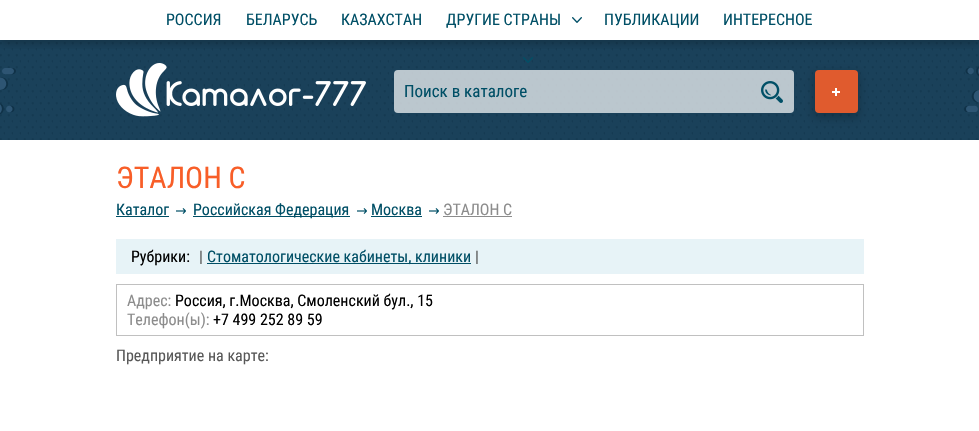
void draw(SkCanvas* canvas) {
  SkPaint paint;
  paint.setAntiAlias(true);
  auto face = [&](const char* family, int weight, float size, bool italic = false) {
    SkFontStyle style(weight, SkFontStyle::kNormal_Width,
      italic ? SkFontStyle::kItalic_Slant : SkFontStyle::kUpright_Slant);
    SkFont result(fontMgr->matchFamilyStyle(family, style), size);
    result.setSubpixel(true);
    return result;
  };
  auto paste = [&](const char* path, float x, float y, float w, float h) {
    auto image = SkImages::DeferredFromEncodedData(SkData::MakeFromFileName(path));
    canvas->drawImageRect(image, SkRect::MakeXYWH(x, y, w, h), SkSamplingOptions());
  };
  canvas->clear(0xffffffff);
  paint.setColor(0xff1a415a);
  canvas->drawRect(SkRect::MakeXYWH(0, 40, 979, 100), paint);
  paste("img/3.png", 0, 42, 978, 98);
  canvas->save();
  canvas->clipRect(SkRect::MakeXYWH(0, 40, 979, 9));
  paint.setColor(0x33000000);
  paint.setMaskFilter(SkMaskFilter::MakeBlur(kNormal_SkBlurStyle, 4));
  canvas->drawRect(SkRect::MakeXYWH(0, 4, 979, 40), paint);
  paint.setMaskFilter(nullptr);
  canvas->restore();
  paste("img/1.png", 572, 17, 10, 6);
  paste("img/2.png", 523, 57, 10, 6);
  paste("img/4.png", 0, 68, 16, 46);
  paste("img/5.png", 964, 66, 15, 46);
  paste("img/6.png", 116, 63, 250, 54);
  paint.setColor(0xb3ffffff);
  canvas->drawRoundRect(SkRect::MakeXYWH(394, 70, 400, 43), 4, 4, paint);
  paste("img/7.png", 761, 81, 22, 22);
  paint.setColor(0x33000000);
  paint.setMaskFilter(SkMaskFilter::MakeBlur(kNormal_SkBlurStyle, 5));
  canvas->drawRoundRect(SkRect::MakeXYWH(814, 73, 45, 45), 5, 5, paint);
  paint.setMaskFilter(nullptr);
  paint.setColor(0xffe05b2e);
  canvas->drawRoundRect(SkRect::MakeXYWH(815, 70, 43, 43), 4, 4, paint);
  paste("img/8.png", 832, 88, 8, 8);
  paste("img/9.png", 176, 208, 10, 6);
  paint.setColor(0xff004f66);
  canvas->drawRect(SkRect::MakeXYWH(116, 216, 53, 1), paint);
  paste("img/9.png", 357, 208, 10, 6);
  canvas->drawRect(SkRect::MakeXYWH(193, 216, 157, 1), paint);
  paste("img/9.png", 429, 208, 10, 6);
  {
    const struct { float x, y, w, h; SkColor color; } items[] = {
      {371, 216, 51, 1, 0xff004f66},
      {443, 216, 69, 1, 0xff8c8c8c},
      {116, 239, 748, 35, 0xffe7f3f7},
      {207, 263, 264, 1, 0xff004f66},
    };
    for (auto [x, y, w, h, color] : items) {
      paint.setColor(color);
      canvas->drawRect(SkRect::MakeXYWH(x, y, w, h), paint);
    }
  }
  paint.setStroke(true);
  paint.setStrokeWidth(1);
  paint.setColor(0xffc0c0c0);
  canvas->drawRect(SkRect::MakeXYWH(116.5f, 284.5f, 747, 51), paint);
  auto f0 = face("Roboto Condensed", 400, 16);
  paint.setStroke(false);
  paint.setColor(0xff004f66);
  {
    const struct { const char* s; float x, y; } items[] = {
      {"РОССИЯ", 166, 25},
      {"БЕЛАРУСЬ", 246, 25},
      {"КАЗАХСТАН", 341, 25},
      {"ДРУГИЕ СТРАНЫ", 446, 25},
      {"ПУБЛИКАЦИИ", 604, 25},
      {"ИНТЕРЕСНОЕ", 723, 25},
    };
    for (auto [s, x, y] : items) {
      canvas->drawString(s, x, y, f0, paint);
    }
  }
  auto f1 = face("Roboto Condensed", 400, 17);
  canvas->drawString("Поиск в каталоге", 404, 97, f1, paint);
  auto f2 = face("Roboto Condensed", 400, 30);
  paint.setColor(0xfff85e28);
  canvas->drawString("ЭТАЛОН С", 116, 188, f2, paint);
  paint.setColor(0xff004f66);
  {
    const struct { const char* s; float x, y; } items[] = {
      {"Каталог", 116, 215},
      {"Российcкая Федерация", 193, 215},
      {"Москва", 371, 215},
    };
    for (auto [s, x, y] : items) {
      canvas->drawString(s, x, y, f0, paint);
    }
  }
  paint.setColor(0xff8c8c8c);
  canvas->drawString("ЭТАЛОН С", 443, 215, f0, paint);
  paint.setColor(0xff000000);
  canvas->drawString("Рубрики:", 131, 262, f0, paint);
  paint.setColor(0xff585858);
  canvas->drawString("|", 199, 262, f0, paint);
  paint.setColor(0xff004f66);
  canvas->drawString("Стоматологические кабинеты, клиники", 207, 262, f0, paint);
  paint.setColor(0xff585858);
  canvas->drawString("|", 475, 262, f0, paint);
  paint.setColor(0xff8c8c8c);
  canvas->drawString("Адрес:", 127, 306, f0, paint);
  paint.setColor(0xff000000);
  canvas->drawString("Россия, г.Москва, Смоленский бул., 15", 175, 306, f0, paint);
  paint.setColor(0xff8c8c8c);
  canvas->drawString("Телефон(ы):", 127, 325, f0, paint);
  paint.setColor(0xff000000);
  canvas->drawString("+7 499 252 89 59", 213, 325, f0, paint);
  paint.setColor(0xff585858);
  canvas->drawString("Предприятие на карте:", 116, 361, f0, paint);
}
